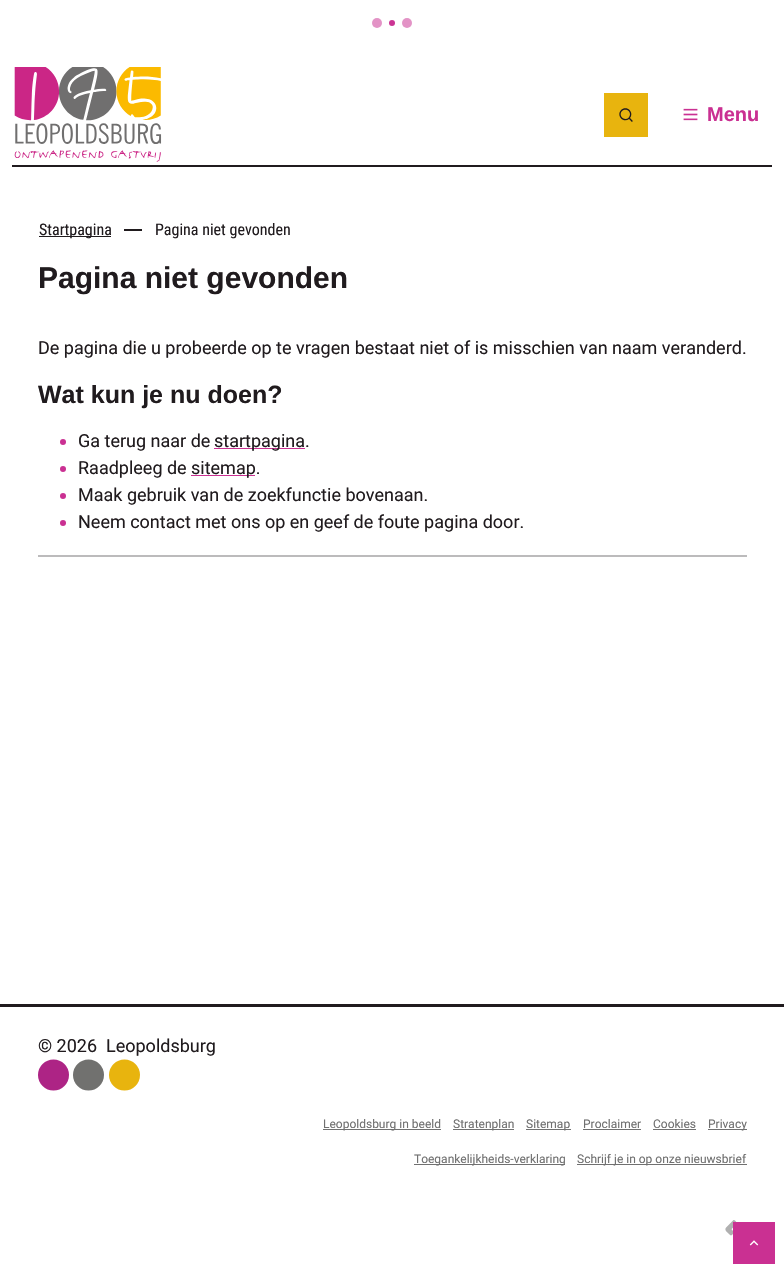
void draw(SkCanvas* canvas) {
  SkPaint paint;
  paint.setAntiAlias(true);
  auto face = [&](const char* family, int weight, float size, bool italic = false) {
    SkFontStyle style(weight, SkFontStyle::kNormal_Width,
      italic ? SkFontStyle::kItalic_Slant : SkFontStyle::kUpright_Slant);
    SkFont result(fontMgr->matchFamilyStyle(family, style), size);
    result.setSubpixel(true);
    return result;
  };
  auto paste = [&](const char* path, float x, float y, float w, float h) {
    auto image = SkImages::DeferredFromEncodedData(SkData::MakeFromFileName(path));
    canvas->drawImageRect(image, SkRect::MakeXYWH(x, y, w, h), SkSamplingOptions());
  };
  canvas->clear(0xffffffff);
  paint.setColor(0xffe393c6);
  canvas->drawCircle(377, 23, 5, paint);
  paint.setColor(0xffcb3494);
  canvas->drawCircle(392, 23, 3, paint);
  paint.setColor(0xffe393c6);
  canvas->drawCircle(407, 23, 5, paint);
  paint.setColor(0xff201b1e);
  canvas->drawRect(SkRect::MakeXYWH(12, 165, 760, 2), paint);
  paste("img/1.png", 14, 67, 148, 95);
  paint.setColor(0xffe8b40e);
  canvas->drawRect(SkRect::MakeXYWH(604, 93, 44, 44), paint);
  paste("img/2.png", 619, 108, 14, 14);
  paste("img/3.png", 683, 108, 15, 13);
  {
    const struct { float x, y, w, h; SkColor color; } items[] = {
      {39, 236, 72, 1, 0xff201b1e},
      {124, 229, 18, 2, 0xff201b1e},
      {38, 555, 709, 2, 0xffbcbbbc},
    };
    for (auto [x, y, w, h, color] : items) {
      paint.setColor(color);
      canvas->drawRect(SkRect::MakeXYWH(x, y, w, h), paint);
    }
  }
  paint.setColor(0xffca3092);
  canvas->drawCircle(63, 442, 3, paint);
  canvas->drawRect(SkRect::MakeXYWH(214, 448, 91, 1), paint);
  canvas->drawCircle(63, 469, 3, paint);
  canvas->drawRect(SkRect::MakeXYWH(191, 475, 64, 1), paint);
  canvas->drawCircle(63, 496, 3, paint);
  canvas->drawCircle(63, 523, 3, paint);
  paint.setColor(0xff201b1e);
  canvas->drawRect(SkRect::MakeXYWH(0, 1004, 784, 3), paint);
  paint.setColor(0xffad2485);
  canvas->drawCircle(53.5f, 1075, 15.5f, paint);
  paint.setColor(0xff71716f);
  canvas->drawCircle(88.5f, 1075, 15.5f, paint);
  paint.setColor(0xffe8b40e);
  canvas->drawCircle(124.5f, 1075, 15.5f, paint);
  {
    const struct { float x, y, w, h; SkColor color; } items[] = {
      {323, 1129, 118, 1, 0xff707070},
      {453, 1129, 61, 1, 0xff707070},
      {526, 1129, 45, 1, 0xff707070},
      {583, 1129, 58, 1, 0xff707070},
      {653, 1129, 43, 1, 0xff707070},
      {708, 1129, 39, 1, 0xff707070},
      {414, 1164, 151, 1, 0xff707070},
      {577, 1164, 170, 1, 0xff707070},
    };
    for (auto [x, y, w, h, color] : items) {
      paint.setColor(color);
      canvas->drawRect(SkRect::MakeXYWH(x, y, w, h), paint);
    }
  }
  paste("img/4.png", 725, 1220, 12, 16);
  paint.setColor(0xffca3092);
  canvas->drawRect(SkRect::MakeXYWH(733, 1222, 42, 42), paint);
  paste("img/5.png", 749, 1240, 10, 6);
  auto f0 = face("Liberation Sans", 700, 20);
  canvas->drawString("Menu", 707, 121, f0, paint);
  auto f1 = face("Roboto Condensed", 400, 16);
  paint.setColor(0xff201b1e);
  canvas->drawString("Startpagina", 39, 235, f1, paint);
  canvas->drawString("Pagina niet gevonden", 155, 235, f1, paint);
  auto f2 = face("Liberation Sans", 700, 30);
  canvas->drawString("Pagina niet gevonden", 38, 288, f2, paint);
  auto f3 = face("Roboto", 400, 18);
  canvas->drawString("De pagina die u probeerde op te vragen bestaat niet of is misschien van naam veranderd.", 38, 354, f3, paint);
  auto f4 = face("Liberation Sans", 700, 25);
  canvas->drawString("Wat kun je nu doen?", 38, 403, f4, paint);
  {
    const struct { const char* s; float x, y; } items[] = {
      {"Ga terug naar de", 78, 447},
      {"startpagina.", 214, 447},
      {"Raadpleeg de", 78, 474},
      {"sitemap.", 191, 474},
      {"Maak gebruik van de zoekfunctie bovenaan.", 78, 501},
      {"Neem contact met ons op en geef de foute pagina door.", 78, 528},
      {"© 2026", 38, 1052},
      {"Leopoldsburg", 106, 1052},
    };
    for (auto [s, x, y] : items) {
      canvas->drawString(s, x, y, f3, paint);
    }
  }
  auto f5 = face("Roboto", 400, 12);
  paint.setColor(0xff707070);
  {
    const struct { const char* s; float x, y; } items[] = {
      {"Leopoldsburg in beeld", 323, 1128},
      {"Stratenplan", 453, 1128},
      {"Sitemap", 526, 1128},
      {"Proclaimer", 583, 1128},
      {"Cookies", 653, 1128},
      {"Privacy", 708, 1128},
      {"Toegankelijkheids-verklaring", 414, 1163},
      {"Schrijf je in op onze nieuwsbrief", 577, 1163},
    };
    for (auto [s, x, y] : items) {
      canvas->drawString(s, x, y, f5, paint);
    }
  }
}
